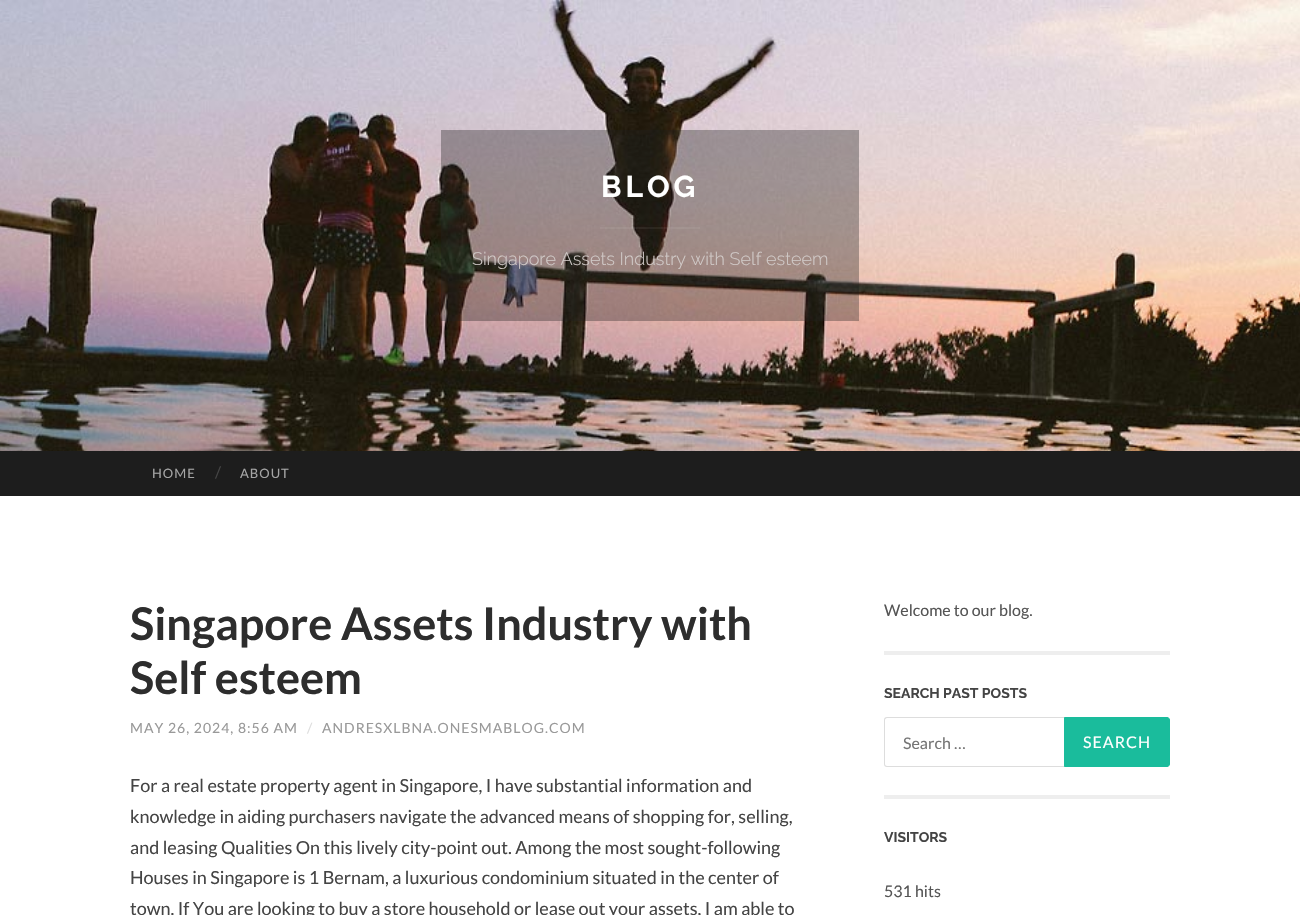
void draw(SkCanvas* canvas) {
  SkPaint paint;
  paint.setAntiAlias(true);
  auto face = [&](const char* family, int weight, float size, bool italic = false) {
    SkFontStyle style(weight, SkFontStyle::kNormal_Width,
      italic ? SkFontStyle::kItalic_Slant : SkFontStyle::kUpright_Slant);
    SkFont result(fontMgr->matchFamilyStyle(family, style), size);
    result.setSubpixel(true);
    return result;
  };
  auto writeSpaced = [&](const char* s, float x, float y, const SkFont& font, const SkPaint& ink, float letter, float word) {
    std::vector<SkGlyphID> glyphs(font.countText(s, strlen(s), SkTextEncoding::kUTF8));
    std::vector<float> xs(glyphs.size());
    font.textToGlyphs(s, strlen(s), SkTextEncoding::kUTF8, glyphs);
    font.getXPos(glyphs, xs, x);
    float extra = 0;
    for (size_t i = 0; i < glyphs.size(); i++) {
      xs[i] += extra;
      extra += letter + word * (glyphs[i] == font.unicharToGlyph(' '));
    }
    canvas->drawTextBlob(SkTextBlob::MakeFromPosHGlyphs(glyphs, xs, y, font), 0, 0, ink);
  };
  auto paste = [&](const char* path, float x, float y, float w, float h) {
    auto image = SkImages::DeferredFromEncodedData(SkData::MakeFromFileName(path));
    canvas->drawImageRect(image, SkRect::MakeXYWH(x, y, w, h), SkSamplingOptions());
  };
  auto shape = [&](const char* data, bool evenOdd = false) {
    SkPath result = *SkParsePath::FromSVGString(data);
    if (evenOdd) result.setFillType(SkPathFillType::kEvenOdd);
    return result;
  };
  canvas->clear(0xffffffff);
  paste("img/1.png", 0, 0, 1300, 451);
  {
    const struct { float x, y, w, h; SkColor color; } items[] = {
      {441, 130, 418, 191, 0x571d1d1d},
      {600, 227, 100, 2, 0x0fffffff},
      {0, 451, 1300, 45, 0xff1d1d1d},
      {884, 651, 286, 4, 0xffeeeeee},
      {884, 795, 286, 4, 0xffeeeeee},
    };
    for (auto [x, y, w, h, color] : items) {
      paint.setColor(color);
      canvas->drawRect(SkRect::MakeXYWH(x, y, w, h), paint);
    }
  }
  paint.setColor(0xffdddddd);
  canvas->drawPath(shape("M887 717H1167V767H887C885 767 884 766 884 764V720C884 718 885 717 887 717ZM887 718H1167V766H887C886 766 885 765 885 764V720C885 719 886 718 887 718Z", true), paint);
  paint.setColor(0xff1abc9c);
  canvas->drawPath(shape("M1064.5 717.5H1167C1168.5 717.5 1169.5 718.5 1169.5 720V764C1169.5 765.5 1168.5 766.5 1167 766.5H1064.5Z"), paint);
  paint.setStroke(true);
  paint.setStrokeWidth(1);
  canvas->drawPath(shape("M1064.5 717.5H1167C1168.5 717.5 1169.5 718.5 1169.5 720V764C1169.5 765.5 1168.5 766.5 1167 766.5H1064.5Z"), paint);
  auto f0 = face("Raleway", 700, 30);
  paint.setStroke(false);
  paint.setColor(0xffffffff);
  writeSpaced("BLOG", 601, 197, f0, paint, 4, 0);
  auto f1 = face("Raleway", 300, 18);
  paint.setColor(0xffd1cac8);
  canvas->drawString("Singapore Assets Industry with Self esteem", 472, 265, f1, paint);
  auto f2 = face("Lato", 400, 13);
  paint.setColor(0xffa5a5a5);
  writeSpaced("HOME", 152, 478, f2, paint, 1, 0);
  auto f3 = face("Lato", 400, 16);
  paint.setColor(0xff444444);
  canvas->drawString("/", 215, 478, f3, paint);
  paint.setColor(0xffa5a5a5);
  writeSpaced("ABOUT", 240, 478, f2, paint, 1, 0);
  auto f4 = face("Lato", 700, 45);
  paint.setColor(0xff2d2d2d);
  canvas->drawString("Singapore Assets Industry with", 130, 640, f4, paint);
  canvas->drawString("Self esteem", 130, 694, f4, paint);
  auto f5 = face("Lato", 400, 14);
  paint.setColor(0xff999999);
  writeSpaced("MAY 26, 2024, 8:56 AM", 130, 733, f5, paint, 1, 0);
  paint.setColor(0xffdddddd);
  writeSpaced("/", 307, 733, f5, paint, 1, 0);
  paint.setColor(0xff999999);
  writeSpaced("ANDRESXLBNA.ONESMABLOG.COM", 322, 733, f5, paint, 1, 0);
  auto f6 = face("Lato", 400, 18);
  paint.setColor(0xff444444);
  {
    const struct { const char* s; float x, y; } items[] = {
      {"For a real estate property agent in Singapore, I have substantial information and", 130, 792},
      {"knowledge in aiding purchasers navigate the advanced means of shopping for, selling,", 130, 823},
      {"and leasing Qualities On this lively city-point out. Among the most sought-following", 130, 854},
      {"Houses in Singapore is 1 Bernam, a luxurious condominium situated in the center of", 130, 884},
      {"town. If You are looking to buy a store household or lease out your assets, I am able to", 130, 915},
    };
    for (auto [s, x, y] : items) {
      canvas->drawString(s, x, y, f6, paint);
    }
  }
  paint.setColor(0xff555555);
  canvas->drawString("Welcome to our blog.", 884, 616, f3, paint);
  auto f7 = face("Raleway", 700, 14);
  paint.setColor(0xff444444);
  canvas->drawString("SEARCH PAST POSTS", 884, 698, f7, paint);
  paint.setColor(0xff757575);
  canvas->drawString("Search …", 903, 749, f3, paint);
  paint.setColor(0xffffffff);
  writeSpaced("SEARCH", 1083, 748, f3, paint, 1, 0);
  paint.setColor(0xff444444);
  canvas->drawString("VISITORS", 884, 842, f7, paint);
  paint.setColor(0xff555555);
  canvas->drawString("531 hits", 884, 897, f3, paint);
}
